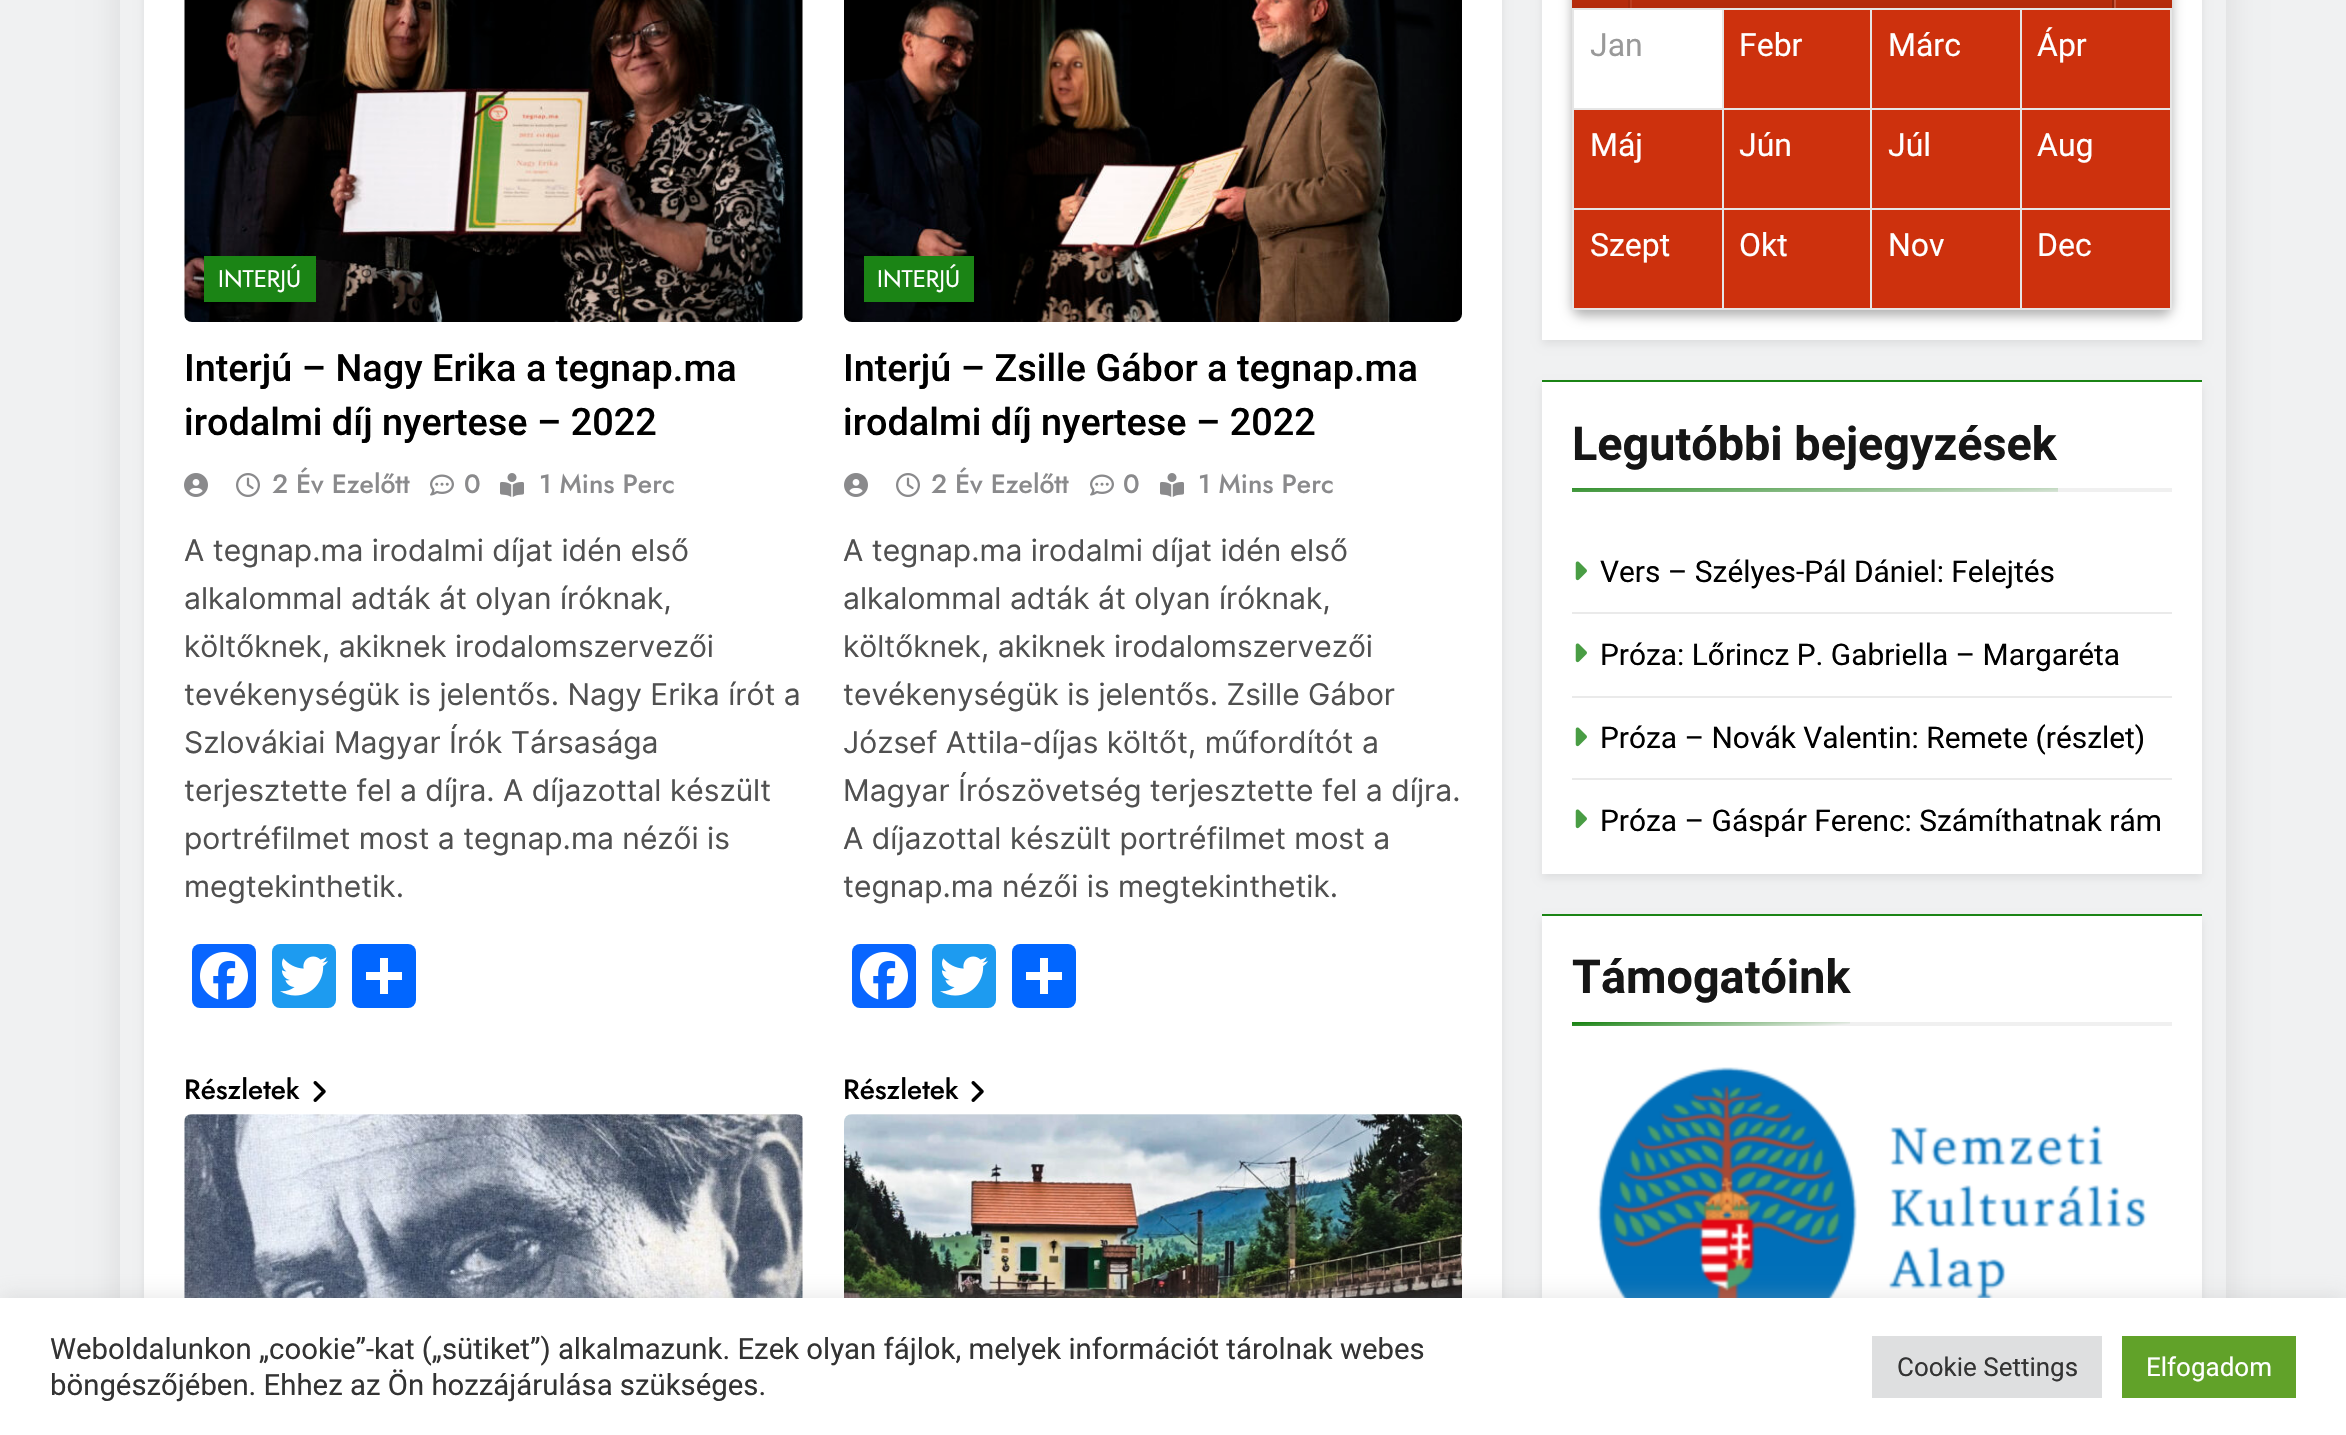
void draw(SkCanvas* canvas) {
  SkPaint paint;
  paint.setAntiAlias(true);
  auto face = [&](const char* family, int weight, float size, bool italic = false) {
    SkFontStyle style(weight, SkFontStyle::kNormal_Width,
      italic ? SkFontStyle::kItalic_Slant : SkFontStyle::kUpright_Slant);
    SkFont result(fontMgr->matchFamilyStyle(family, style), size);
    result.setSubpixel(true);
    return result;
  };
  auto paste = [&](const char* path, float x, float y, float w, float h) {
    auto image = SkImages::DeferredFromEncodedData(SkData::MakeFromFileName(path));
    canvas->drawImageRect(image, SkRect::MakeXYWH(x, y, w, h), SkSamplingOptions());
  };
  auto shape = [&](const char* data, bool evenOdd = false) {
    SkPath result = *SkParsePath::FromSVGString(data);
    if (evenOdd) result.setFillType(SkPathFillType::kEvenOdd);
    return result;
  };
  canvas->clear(0xfff0f1f2);
  canvas->save();
  canvas->clipPath(shape("M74 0H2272V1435H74ZM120-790H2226V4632H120Z", true), true);
  paint.setColor(0x1a000000);
  paint.setMaskFilter(SkMaskFilter::MakeBlur(kNormal_SkBlurStyle, 15));
  canvas->drawRect(SkRect::MakeXYWH(120, -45, 2106, 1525), paint);
  paint.setMaskFilter(nullptr);
  canvas->restore();
  paint.setColor(0x14000000);
  paint.setMaskFilter(SkMaskFilter::MakeBlur(kNormal_SkBlurStyle, 4));
  canvas->drawRect(SkRect::MakeXYWH(144, -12, 1358, 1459), paint);
  paint.setMaskFilter(nullptr);
  paint.setColor(0xffffffff);
  canvas->drawRect(SkRect::MakeXYWH(144, 0, 1358, 1298), paint);
  paste("img/1.png", 184, 0, 619, 322);
  paint.setColor(0xff1b8415);
  canvas->drawRect(SkRect::MakeXYWH(204, 256, 112, 46), paint);
  paste("img/2.png", 184, 473, 24, 24);
  paste("img/3.png", 236, 473, 24, 24);
  paste("img/4.png", 430, 474, 24, 22);
  paste("img/5.png", 500, 473, 24, 24);
  paint.setColor(0xff0866ff);
  canvas->drawRoundRect(SkRect::MakeXYWH(192, 944, 64, 64), 8, 8, paint);
  paste("img/6.png", 200, 952, 48, 48);
  paint.setColor(0xff1d9bf0);
  canvas->drawRoundRect(SkRect::MakeXYWH(272, 944, 64, 64), 8, 8, paint);
  paste("img/7.png", 280, 956, 48, 40);
  paint.setColor(0xff0166ff);
  canvas->drawRoundRect(SkRect::MakeXYWH(352, 944, 64, 64), 8, 8, paint);
  paint.setColor(0xffffffff);
  canvas->drawRect(SkRect::MakeXYWH(380, 958, 8, 36), paint);
  canvas->drawRect(SkRect::MakeXYWH(366, 972, 36, 8), paint);
  paste("img/8.png", 313, 1081, 13, 21);
  paste("img/9.png", 844, 0, 618, 322);
  paint.setColor(0xff1b8415);
  canvas->drawRect(SkRect::MakeXYWH(864, 256, 110, 46), paint);
  paste("img/2.png", 844, 473, 24, 24);
  paste("img/3.png", 896, 473, 24, 24);
  paste("img/4.png", 1090, 474, 24, 22);
  paste("img/5.png", 1160, 473, 24, 24);
  paint.setColor(0xff0866ff);
  canvas->drawRoundRect(SkRect::MakeXYWH(852, 944, 64, 64), 8, 8, paint);
  paste("img/6.png", 860, 952, 48, 48);
  paint.setColor(0xff1d9bf0);
  canvas->drawRoundRect(SkRect::MakeXYWH(932, 944, 64, 64), 8, 8, paint);
  paste("img/7.png", 940, 956, 48, 40);
  paint.setColor(0xff0166ff);
  canvas->drawRoundRect(SkRect::MakeXYWH(1012, 944, 64, 64), 8, 8, paint);
  paint.setColor(0xffffffff);
  canvas->drawRect(SkRect::MakeXYWH(1040, 958, 8, 36), paint);
  canvas->drawRect(SkRect::MakeXYWH(1026, 972, 36, 8), paint);
  paste("img/8.png", 971, 1081, 13, 21);
  paste("img/10.png", 184, 1114, 619, 184);
  paste("img/11.png", 844, 1114, 618, 184);
  paint.setColor(0x14000000);
  paint.setMaskFilter(SkMaskFilter::MakeBlur(kNormal_SkBlurStyle, 4));
  canvas->drawRect(SkRect::MakeXYWH(1542, -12, 660, 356), paint);
  paint.setMaskFilter(nullptr);
  paint.setColor(0xffffffff);
  canvas->drawRect(SkRect::MakeXYWH(1542, 0, 660, 340), paint);
  canvas->save();
  canvas->clipPath(shape("M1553 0H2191V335H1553ZM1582-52H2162C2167.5-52 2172-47.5 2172-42V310H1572V-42C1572-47.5 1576.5-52 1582-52Z", true), true);
  paint.setColor(0x4d000000);
  paint.setMaskFilter(SkMaskFilter::MakeBlur(kNormal_SkBlurStyle, 6));
  canvas->drawRoundRect(SkRect::MakeXYWH(1572, -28, 600, 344), 10, 10, paint);
  paint.setMaskFilter(nullptr);
  canvas->restore();
  {
    const SkColor colors[] = {0xffcd310d, 0xffb32b0c};
    const float stops[] = {0, 1};
    const SkPoint ends[] = {{1872, -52}, {1872, 8}};
    paint.setShader(SkGradientShader::MakeLinear(ends, colors, stops, 2, SkTileMode::kClamp));
    paint.setAlpha(255);
  }
  canvas->drawRect(SkRect::MakeXYWH(1572, 0, 600, 8), paint);
  {
    const SkColor colors[] = {0xffa4270a, 0xff8f220a};
    const float stops[] = {0, 1};
    const SkPoint ends[] = {{1872, -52}, {1872, 8}};
    paint.setShader(SkGradientShader::MakeLinear(ends, colors, stops, 2, SkTileMode::kClamp));
    paint.setAlpha(255);
  }
  canvas->drawRect(SkRect::MakeXYWH(2112, 0, 2, 8), paint);
  {
    const SkColor colors[] = {0xffd75a3d, 0xffc2553d};
    const float stops[] = {0, 1};
    const SkPoint ends[] = {{1872, -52}, {1872, 8}};
    paint.setShader(SkGradientShader::MakeLinear(ends, colors, stops, 2, SkTileMode::kClamp));
    paint.setAlpha(255);
  }
  canvas->drawRect(SkRect::MakeXYWH(2114, 0, 2, 8), paint);
  {
    const SkColor colors[] = {0xffd14120, 0xffb93c1f};
    const float stops[] = {0, 1};
    const SkPoint ends[] = {{1872, -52}, {1872, 8}};
    paint.setShader(SkGradientShader::MakeLinear(ends, colors, stops, 2, SkTileMode::kClamp));
    paint.setAlpha(255);
  }
  canvas->drawRect(SkRect::MakeXYWH(1630, 0, 2, 8), paint);
  {
    const SkColor colors[] = {0xffbd2d0c, 0xffa5280b};
    const float stops[] = {0, 1};
    const SkPoint ends[] = {{1872, -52}, {1872, 8}};
    paint.setShader(SkGradientShader::MakeLinear(ends, colors, stops, 2, SkTileMode::kClamp));
    paint.setAlpha(255);
  }
  canvas->drawRect(SkRect::MakeXYWH(1628, 0, 2, 8), paint);
  paint.setShader(nullptr);
  {
    const struct { float x, y, w, h; SkColor color; } items[] = {
      {1572, 8, 600, 2, 0xffe6e6e6},
      {2170, 8, 2, 302, 0xffe6e6e6},
      {1572, 8, 2, 302, 0xffe6e6e6},
      {1722, 10, 2, 300, 0xffe6e6e6},
      {1574, 108, 150, 2, 0xffe6e6e6},
      {1724, 10, 146, 98, 0xffcd310d},
      {1870, 10, 2, 300, 0xffe6e6e6},
      {1724, 108, 148, 2, 0xffe6e6e6},
      {1872, 10, 148, 98, 0xffcd310d},
      {2020, 10, 2, 300, 0xffe6e6e6},
      {1872, 108, 298, 2, 0xffe6e6e6},
      {2022, 10, 148, 98, 0xffcd310d},
      {1574, 110, 148, 98, 0xffcd310d},
      {1574, 208, 596, 2, 0xffe6e6e6},
      {1724, 110, 146, 98, 0xffcd310d},
      {1872, 110, 148, 98, 0xffcd310d},
      {2022, 110, 148, 98, 0xffcd310d},
      {1574, 210, 148, 98, 0xffcd310d},
      {1574, 308, 596, 2, 0xffe6e6e6},
      {1724, 210, 146, 98, 0xffcd310d},
      {1872, 210, 148, 98, 0xffcd310d},
      {2022, 210, 148, 98, 0xffcd310d},
    };
    for (auto [x, y, w, h, color] : items) {
      paint.setColor(color);
      canvas->drawRect(SkRect::MakeXYWH(x, y, w, h), paint);
    }
  }
  paint.setColor(0x14000000);
  paint.setMaskFilter(SkMaskFilter::MakeBlur(kNormal_SkBlurStyle, 4));
  canvas->drawRect(SkRect::MakeXYWH(1542, 386, 660, 492), paint);
  paint.setMaskFilter(nullptr);
  {
    const struct { float x, y, w, h; SkColor color; } items[] = {
      {1542, 382, 660, 492, 0xffffffff},
      {1542, 380, 660, 2, 0xff1b8415},
      {2058, 488, 114, 4, 0xfff0f0f0},
    };
    for (auto [x, y, w, h, color] : items) {
      paint.setColor(color);
      canvas->drawRect(SkRect::MakeXYWH(x, y, w, h), paint);
    }
  }
  {
    const SkColor colors[] = {0xff1b8415, 0xfff0f0f0};
    const float stops[] = {0, 1};
    const SkPoint ends[] = {{1814, 471}, {1816, 509}};
    paint.setShader(SkGradientShader::MakeLinear(ends, colors, stops, 2, SkTileMode::kClamp));
    paint.setAlpha(255);
  }
  canvas->drawRect(SkRect::MakeXYWH(1572, 488, 486, 4), paint);
  paint.setShader(nullptr);
  paint.setColor(0xffeaeaea);
  canvas->drawRect(SkRect::MakeXYWH(1572, 612, 600, 2), paint);
  paste("img/12.png", 1575, 561, 12, 20);
  canvas->drawRect(SkRect::MakeXYWH(1572, 696, 600, 2), paint);
  paste("img/12.png", 1575, 643, 12, 20);
  canvas->drawRect(SkRect::MakeXYWH(1572, 778, 600, 2), paint);
  paste("img/12.png", 1575, 727, 12, 20);
  paste("img/12.png", 1575, 809, 12, 20);
  paint.setColor(0x14000000);
  paint.setMaskFilter(SkMaskFilter::MakeBlur(kNormal_SkBlurStyle, 4));
  canvas->drawRect(SkRect::MakeXYWH(1542, 920, 660, 488), paint);
  paint.setMaskFilter(nullptr);
  {
    const struct { float x, y, w, h; SkColor color; } items[] = {
      {1542, 916, 660, 382, 0xffffffff},
      {1542, 914, 660, 2, 0xff1b8415},
      {1850, 1022, 322, 4, 0xfff0f0f0},
    };
    for (auto [x, y, w, h, color] : items) {
      paint.setColor(color);
      canvas->drawRect(SkRect::MakeXYWH(x, y, w, h), paint);
    }
  }
  {
    const SkColor colors[] = {0xff1b8415, 0xfff0f0f0};
    const float stops[] = {0, 1};
    const SkPoint ends[] = {{1710, 1012}, {1712, 1036}};
    paint.setShader(SkGradientShader::MakeLinear(ends, colors, stops, 2, SkTileMode::kClamp));
    paint.setAlpha(255);
  }
  canvas->drawRect(SkRect::MakeXYWH(1572, 1022, 278, 4), paint);
  paste("img/13.png", 1597, 1067, 550, 231);
  paint.setShader(nullptr);
  paint.setColor(0x4dacabab);
  paint.setMaskFilter(SkMaskFilter::MakeBlur(kNormal_SkBlurStyle, 10));
  canvas->drawRect(SkRect::MakeXYWH(0, 1296, 2346, 138), paint);
  paint.setMaskFilter(nullptr);
  {
    const struct { float x, y, w, h; SkColor color; } items[] = {
      {0, 1298, 2346, 137, 0xffffffff},
      {1872, 1336, 230, 62, 0xffdedfe0},
      {2122, 1336, 174, 62, 0xff61a229},
    };
    for (auto [x, y, w, h, color] : items) {
      paint.setColor(color);
      canvas->drawRect(SkRect::MakeXYWH(x, y, w, h), paint);
    }
  }
  auto f0 = face("Jost", 400, 24);
  paint.setColor(0xffffffff);
  canvas->drawString("INTERJÚ", 218, 287, f0, paint);
  auto f1 = face("Roboto", 500, 37.8f);
  paint.setColor(0xff000000);
  canvas->drawString("Interjú – Nagy Erika a tegnap.ma", 184, 381, f1, paint);
  canvas->drawString("irodalmi díj nyertese – 2022", 184, 435, f1, paint);
  auto f2 = face("Jost", 500, 26.5f);
  paint.setColor(0xff8a8a8c);
  {
    const struct { const char* s; float x, y; } items[] = {
      {"2 Év Ezelőtt", 272, 493},
      {"0", 464, 493},
      {"1 Mins Perc", 539, 493},
    };
    for (auto [s, x, y] : items) {
      canvas->drawString(s, x, y, f2, paint);
    }
  }
  auto f3 = face("Inter", 400, 30);
  paint.setColor(0xff505050);
  {
    const struct { const char* s; float x, y; } items[] = {
      {"A tegnap.ma irodalmi díjat idén első", 184, 561},
      {"alkalommal adták át olyan íróknak,", 184, 609},
      {"költőknek, akiknek irodalomszervezői", 184, 657},
      {"tevékenységük is jelentős. Nagy Erika írót a", 184, 705},
      {"Szlovákiai Magyar Írók Társasága", 184, 753},
      {"terjesztette fel a díjra. A díjazottal készült", 184, 801},
      {"portréfilmet most a tegnap.ma nézői is", 184, 849},
      {"megtekinthetik.", 184, 897},
    };
    for (auto [s, x, y] : items) {
      canvas->drawString(s, x, y, f3, paint);
    }
  }
  auto f4 = face("Jost", 500, 28);
  paint.setColor(0xff000000);
  canvas->drawString("Részletek", 184, 1099, f4, paint);
  paint.setColor(0xffffffff);
  canvas->drawString("INTERJÚ", 877, 287, f0, paint);
  paint.setColor(0xff000000);
  canvas->drawString("Interjú – Zsille Gábor a tegnap.ma", 843, 381, f1, paint);
  canvas->drawString("irodalmi díj nyertese – 2022", 843, 435, f1, paint);
  paint.setColor(0xff8a8a8c);
  {
    const struct { const char* s; float x, y; } items[] = {
      {"2 Év Ezelőtt", 931, 493},
      {"0", 1123, 493},
      {"1 Mins Perc", 1198, 493},
    };
    for (auto [s, x, y] : items) {
      canvas->drawString(s, x, y, f2, paint);
    }
  }
  paint.setColor(0xff505050);
  {
    const struct { const char* s; float x, y; } items[] = {
      {"A tegnap.ma irodalmi díjat idén első", 843, 561},
      {"alkalommal adták át olyan íróknak,", 843, 609},
      {"költőknek, akiknek irodalomszervezői", 843, 657},
      {"tevékenységük is jelentős. Zsille Gábor", 843, 705},
      {"József Attila-díjas költőt, műfordítót a", 843, 753},
      {"Magyar Írószövetség terjesztette fel a díjra.", 843, 801},
      {"A díjazottal készült portréfilmet most a", 843, 849},
      {"tegnap.ma nézői is megtekinthetik.", 843, 897},
    };
    for (auto [s, x, y] : items) {
      canvas->drawString(s, x, y, f3, paint);
    }
  }
  paint.setColor(0xff000000);
  canvas->drawString("Részletek", 843, 1099, f4, paint);
  auto f5 = face("Roboto", 400, 32);
  paint.setColor(0xff999999);
  canvas->drawString("Jan", 1590, 56, f5, paint);
  paint.setColor(0xffffffff);
  {
    const struct { const char* s; float x, y; } items[] = {
      {"Febr", 1739, 56},
      {"Márc", 1888, 56},
      {"Ápr", 2037, 56},
      {"Máj", 1590, 156},
      {"Jún", 1739, 156},
      {"Júl", 1888, 156},
      {"Aug", 2037, 156},
      {"Szept", 1590, 256},
      {"Okt", 1739, 256},
      {"Nov", 1888, 256},
      {"Dec", 2037, 256},
    };
    for (auto [s, x, y] : items) {
      canvas->drawString(s, x, y, f5, paint);
    }
  }
  auto f6 = face("Roboto", 700, 46.75f);
  paint.setColor(0xff161616);
  canvas->drawString("Legutóbbi bejegyzések", 1572, 460, f6, paint);
  auto f7 = face("Roboto", 400, 29.9f);
  paint.setColor(0xff000000);
  {
    const struct { const char* s; float x, y; } items[] = {
      {"Vers – Szélyes-Pál Dániel: Felejtés", 1600, 582},
      {"Próza: Lőrincz P. Gabriella – Margaréta", 1600, 665},
      {"Próza – Novák Valentin: Remete (részlet)", 1600, 748},
      {"Próza – Gáspár Ferenc: Számíthatnak rám", 1600, 831},
    };
    for (auto [s, x, y] : items) {
      canvas->drawString(s, x, y, f7, paint);
    }
  }
  paint.setColor(0xff161616);
  canvas->drawString("Támogatóink", 1572, 993, f6, paint);
  auto f8 = face("Roboto", 400, 29.35f);
  paint.setColor(0xff333333);
  canvas->drawString("Weboldalunkon „cookie”-kat („sütiket”) alkalmazunk. Ezek olyan fájlok, melyek információt tárolnak webes", 50, 1359, f8, paint);
  canvas->drawString("böngészőjében. Ehhez az Ön hozzájárulása szükséges.", 50, 1395, f8, paint);
  auto f9 = face("Roboto", 400, 26);
  canvas->drawString("Cookie Settings", 1897, 1376, f9, paint);
  paint.setColor(0xffffffff);
  canvas->drawString("Elfogadom", 2146, 1376, f9, paint);
}
